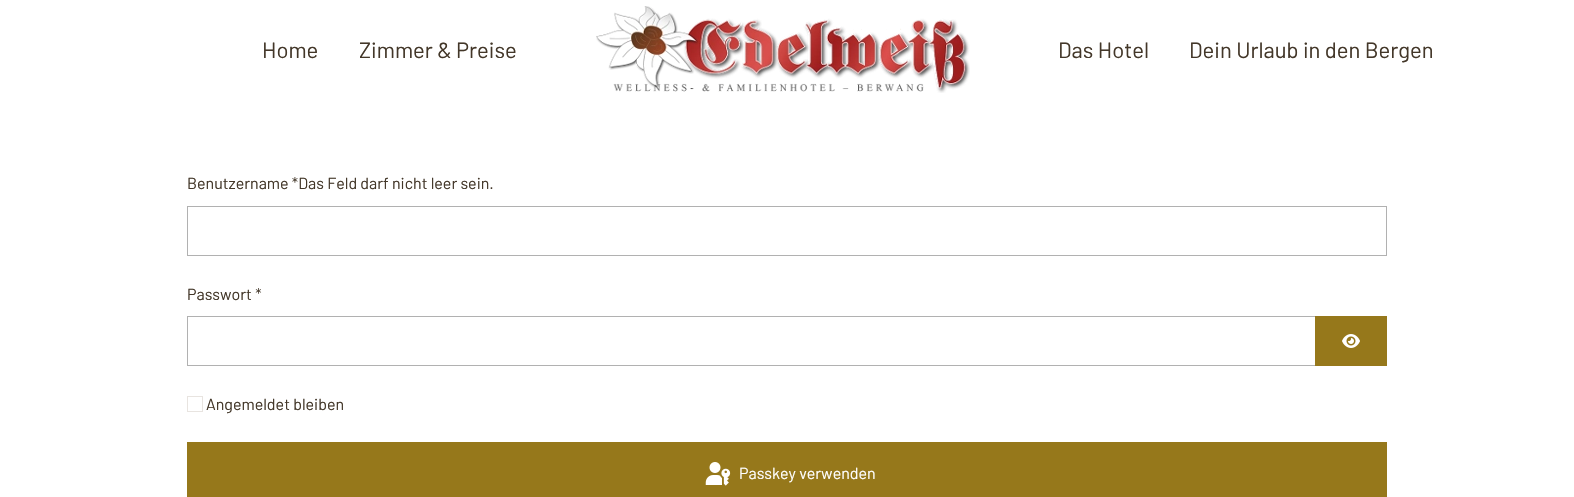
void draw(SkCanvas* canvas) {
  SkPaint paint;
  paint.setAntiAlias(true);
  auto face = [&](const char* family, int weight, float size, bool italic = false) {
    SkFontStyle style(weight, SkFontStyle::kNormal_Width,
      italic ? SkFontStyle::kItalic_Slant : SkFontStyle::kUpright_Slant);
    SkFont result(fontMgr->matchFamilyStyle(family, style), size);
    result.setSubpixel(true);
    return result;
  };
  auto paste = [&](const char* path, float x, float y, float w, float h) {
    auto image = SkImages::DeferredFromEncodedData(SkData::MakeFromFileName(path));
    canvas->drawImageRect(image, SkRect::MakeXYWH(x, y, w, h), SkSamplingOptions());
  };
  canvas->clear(0xffffffff);
  paste("img/1.png", 596, 6, 374, 87);
  paint.setStroke(true);
  paint.setStrokeWidth(1);
  paint.setColor(0xffb1b1b1);
  canvas->drawRect(SkRect::MakeXYWH(187.5f, 206.5f, 1199, 49), paint);
  canvas->drawRect(SkRect::MakeXYWH(187.5f, 316.5f, 1128, 49), paint);
  paint.setStroke(false);
  paint.setColor(0xff96781b);
  canvas->drawRect(SkRect::MakeXYWH(1315, 316, 72, 50), paint);
  paste("img/2.png", 1342, 334, 18, 14);
  paint.setStroke(true);
  paint.setColor(0xffe8e4e0);
  canvas->drawRect(SkRect::MakeXYWH(187.5f, 396.5f, 15, 15), paint);
  paint.setStroke(false);
  paint.setColor(0xff96781b);
  canvas->drawRect(SkRect::MakeXYWH(187, 442, 1200, 55), paint);
  paste("img/3.png", 705, 462, 26, 24);
  auto f0 = face("Barlow", 400, 22);
  paint.setColor(0xff433729);
  {
    const struct { const char* s; float x, y; } items[] = {
      {"Home", 262, 58},
      {"Zimmer & Preise", 359, 58},
      {"Das Hotel", 1058, 58},
      {"Dein Urlaub in den Bergen", 1189, 58},
    };
    for (auto [s, x, y] : items) {
      canvas->drawString(s, x, y, f0, paint);
    }
  }
  auto f1 = face("Barlow", 400, 16);
  {
    const struct { const char* s; float x, y; } items[] = {
      {"Benutzername *Das Feld darf nicht leer sein.", 187, 189},
      {"Passwort *", 187, 300},
      {"Angemeldet bleiben", 206, 410},
    };
    for (auto [s, x, y] : items) {
      canvas->drawString(s, x, y, f1, paint);
    }
  }
  paint.setColor(0xffffffff);
  canvas->drawString("Passkey verwenden", 739, 479, f1, paint);
}
